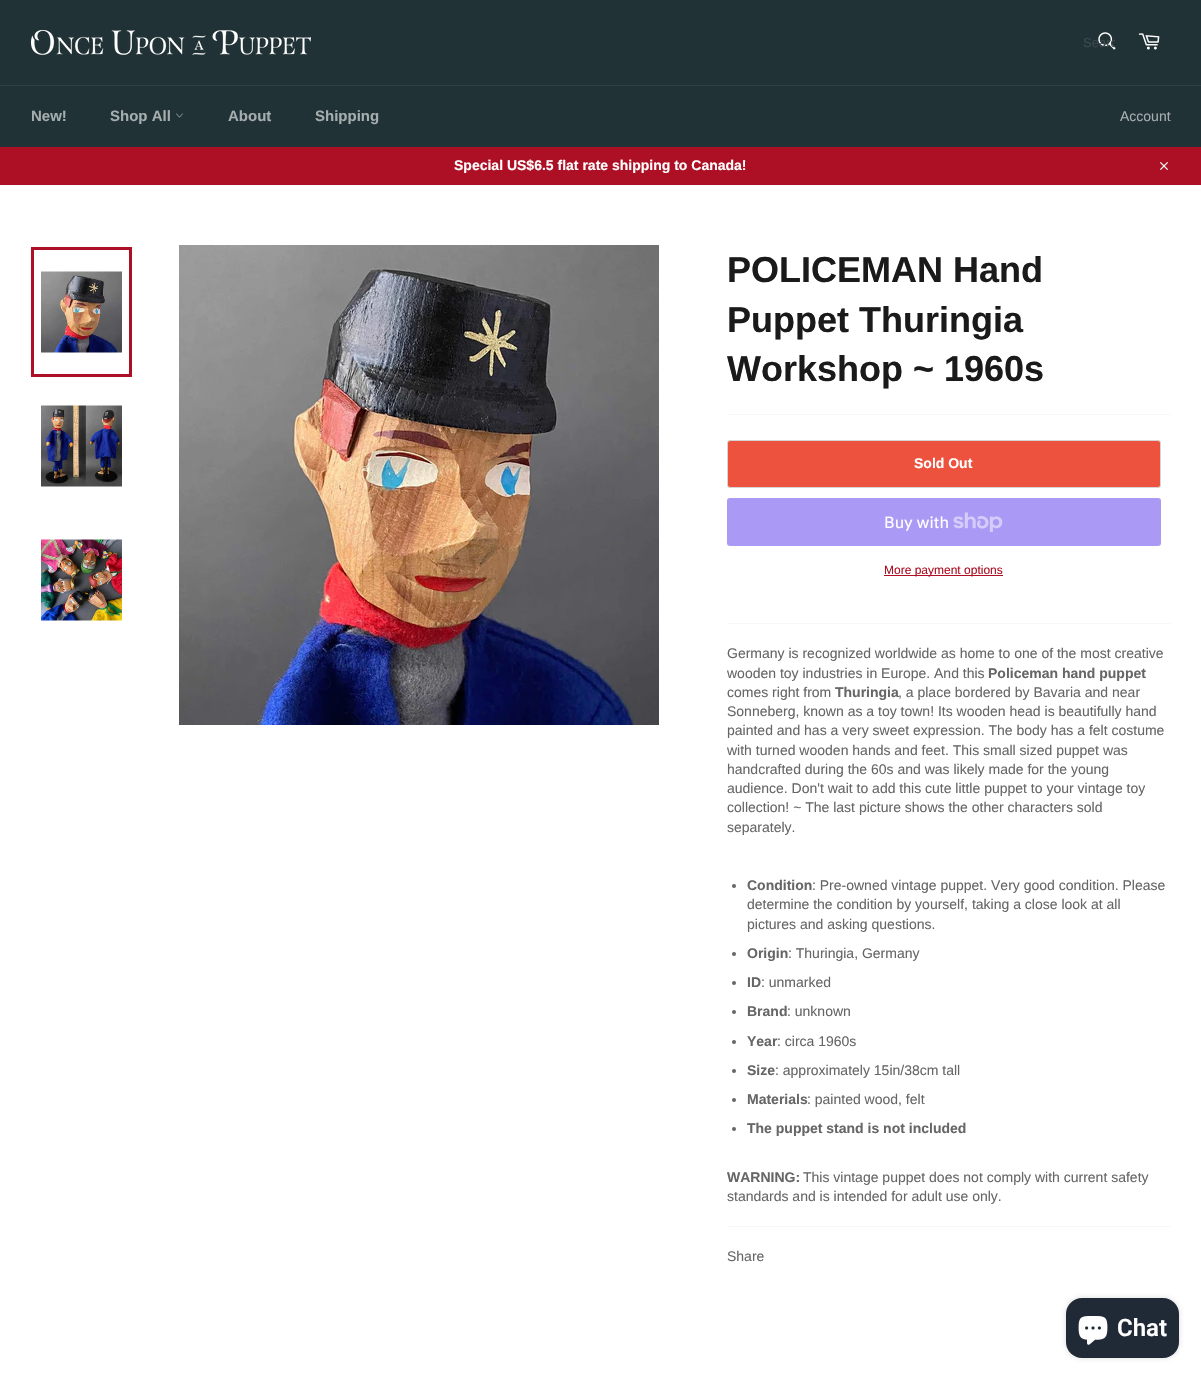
void draw(SkCanvas* canvas) {
  SkPaint paint;
  paint.setAntiAlias(true);
  auto face = [&](const char* family, int weight, float size, bool italic = false) {
    SkFontStyle style(weight, SkFontStyle::kNormal_Width,
      italic ? SkFontStyle::kItalic_Slant : SkFontStyle::kUpright_Slant);
    SkFont result(fontMgr->matchFamilyStyle(family, style), size);
    result.setSubpixel(true);
    return result;
  };
  auto paste = [&](const char* path, float x, float y, float w, float h) {
    auto image = SkImages::DeferredFromEncodedData(SkData::MakeFromFileName(path));
    canvas->drawImageRect(image, SkRect::MakeXYWH(x, y, w, h), SkSamplingOptions());
  };
  canvas->clear(0xff213236);
  paste("img/1.png", 31, 30, 280, 25);
  paste("img/2.png", 1098, 32, 18, 18);
  paste("img/3.png", 1138, 33, 22, 17);
  paint.setColor(0xff2b4146);
  canvas->drawRect(SkRect::MakeXYWH(0, 85, 1201, 1), paint);
  paste("img/4.png", 176, 113, 7, 5);
  paint.setColor(0xffad0f24);
  canvas->drawRect(SkRect::MakeXYWH(0, 147, 1201, 38), paint);
  paste("img/5.png", 1160, 162, 8, 8);
  paint.setColor(0xffffffff);
  canvas->drawRect(SkRect::MakeXYWH(0, 185, 1201, 1194), paint);
  paste("img/6.png", 41, 271, 81, 82);
  paint.setStroke(true);
  paint.setStrokeWidth(3);
  paint.setColor(0xffad0f24);
  canvas->drawRect(SkRect::MakeXYWH(32.5f, 248.5f, 98, 127), paint);
  paste("img/7.png", 41, 405, 81, 82);
  paste("img/8.png", 41, 539, 81, 82);
  paste("img/9.png", 179, 245, 480, 480);
  paint.setStroke(false);
  paint.setColor(0xfff7f7f7);
  canvas->drawRect(SkRect::MakeXYWH(727, 414, 444, 1), paint);
  paint.setColor(0xffec523e);
  canvas->drawRoundRect(SkRect::MakeXYWH(727.5f, 440.5f, 433, 47), 2.5f, 2.5f, paint);
  paint.setStroke(true);
  paint.setStrokeWidth(1);
  paint.setColor(0xffd5d5d5);
  canvas->drawRoundRect(SkRect::MakeXYWH(727.5f, 440.5f, 433, 47), 2.5f, 2.5f, paint);
  paint.setStroke(false);
  paint.setColor(0xffaa99f5);
  canvas->drawRoundRect(SkRect::MakeXYWH(727, 498, 434, 48), 3, 3, paint);
  paste("img/10.png", 953, 512, 50, 20);
  paint.setColor(0xffad0f24);
  canvas->drawRect(SkRect::MakeXYWH(884, 575, 119, 1), paint);
  paint.setColor(0xfff7f7f7);
  canvas->drawRect(SkRect::MakeXYWH(727, 623, 444, 1), paint);
  paint.setColor(0xff666666);
  canvas->drawCircle(734, 886, 2, paint);
  canvas->drawCircle(734, 954, 2, paint);
  canvas->drawCircle(734, 983, 2, paint);
  canvas->drawCircle(734, 1012, 2, paint);
  canvas->drawCircle(734, 1042, 2, paint);
  canvas->drawCircle(734, 1071, 2, paint);
  canvas->drawCircle(734, 1100, 2, paint);
  canvas->drawCircle(734, 1129, 2, paint);
  paint.setColor(0xfff7f7f7);
  canvas->drawRect(SkRect::MakeXYWH(727, 1226, 444, 1), paint);
  paint.setColor(0x26000000);
  paint.setMaskFilter(SkMaskFilter::MakeBlur(kNormal_SkBlurStyle, 2.5f));
  canvas->drawRoundRect(SkRect::MakeXYWH(1066, 1298, 113, 60), 16, 16, paint);
  paint.setMaskFilter(nullptr);
  paint.setColor(0xff202a36);
  canvas->drawRoundRect(SkRect::MakeXYWH(1066, 1298, 113, 60), 16, 16, paint);
  paste("img/11.png", 1078, 1316, 30, 29);
  canvas->save();
  canvas->clipRect(SkRect::MakeXYWH(1083, 35, 32, 15));
  auto f0 = face("Liberation Sans", 400, 13);
  paint.setColor(0xff3b4a4d);
  canvas->drawString("Searc", 1083, 47, f0, paint);
  canvas->restore();
  auto f1 = face("Liberation Sans", 700, 15);
  paint.setColor(0xffa6adaf);
  {
    const struct { const char* s; float x, y; } items[] = {
      {"New!", 31, 121},
      {"Shop All", 110, 121},
      {"About", 228, 121},
      {"Shipping", 315, 121},
    };
    for (auto [s, x, y] : items) {
      canvas->drawString(s, x, y, f1, paint);
    }
  }
  auto f2 = face("Liberation Sans", 400, 14);
  canvas->drawString("Account", 1120, 121, f2, paint);
  auto f3 = face("Liberation Sans", 700, 14);
  paint.setColor(0xffffffff);
  canvas->drawString("Special US$6.5 flat rate shipping to Canada!", 454, 170, f3, paint);
  auto f4 = face("Liberation Sans", 700, 36);
  paint.setColor(0xff1a1a1a);
  {
    const struct { const char* s; float x, y; } items[] = {
      {"POLICEMAN Hand", 727, 282},
      {"Puppet Thuringia", 727, 332},
      {"Workshop ~ 1960s", 727, 381},
    };
    for (auto [s, x, y] : items) {
      canvas->drawString(s, x, y, f4, paint);
    }
  }
  paint.setColor(0xffffffff);
  canvas->drawString("Sold Out", 914, 468, f3, paint);
  auto f5 = face("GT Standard", 400, 16);
  canvas->drawString("Buy with", 884, 528, f5, paint);
  auto f6 = face("Liberation Sans", 400, 12);
  paint.setColor(0xffad0f24);
  canvas->drawString("More payment options", 884, 574, f6, paint);
  paint.setColor(0xff666666);
  canvas->drawString("Germany is recognized worldwide as home to one of the most creative", 727, 658, f2, paint);
  canvas->drawString("wooden toy industries in Europe. And this", 727, 678, f2, paint);
  canvas->drawString("Policeman hand puppet", 988, 678, f3, paint);
  canvas->drawString("comes right from", 727, 697, f2, paint);
  canvas->drawString("Thuringia", 835, 697, f3, paint);
  {
    const struct { const char* s; float x, y; } items[] = {
      {", a place bordered by Bavaria and near", 898, 697},
      {"Sonneberg, known as a toy town! Its wooden head is beautifully hand", 727, 716},
      {"painted and has a very sweet expression. The body has a felt costume", 727, 735},
      {"with turned wooden hands and feet. This small sized puppet was", 727, 755},
      {"handcrafted during the 60s and was likely made for the young", 727, 774},
      {"audience. Don't wait to add this cute little puppet to your vintage toy", 727, 793},
      {"collection! ~ The last picture shows the other characters sold", 727, 812},
      {"separately.", 727, 832},
    };
    for (auto [s, x, y] : items) {
      canvas->drawString(s, x, y, f2, paint);
    }
  }
  canvas->drawString("Condition", 747, 890, f3, paint);
  {
    const struct { const char* s; float x, y; } items[] = {
      {": Pre-owned vintage puppet. Very good condition. Please", 812, 890},
      {"determine the condition by yourself, taking a close look at all", 747, 909},
      {"pictures and asking questions.", 747, 929},
    };
    for (auto [s, x, y] : items) {
      canvas->drawString(s, x, y, f2, paint);
    }
  }
  canvas->drawString("Origin", 747, 958, f3, paint);
  canvas->drawString(": Thuringia, Germany", 788, 958, f2, paint);
  canvas->drawString("ID", 747, 987, f3, paint);
  canvas->drawString(": unmarked", 761, 987, f2, paint);
  canvas->drawString("Brand", 747, 1016, f3, paint);
  canvas->drawString(": unknown", 787, 1016, f2, paint);
  canvas->drawString("Year", 747, 1046, f3, paint);
  canvas->drawString(": circa 1960s", 777, 1046, f2, paint);
  canvas->drawString("Size", 747, 1075, f3, paint);
  canvas->drawString(": approximately 15in/38cm tall", 775, 1075, f2, paint);
  canvas->drawString("Materials", 747, 1104, f3, paint);
  canvas->drawString(": painted wood, felt", 807, 1104, f2, paint);
  canvas->drawString("The puppet stand is not included", 747, 1133, f3, paint);
  canvas->drawString("WARNING:", 727, 1182, f3, paint);
  {
    const struct { const char* s; float x, y; } items[] = {
      {"This vintage puppet does not comply with current safety", 803, 1182},
      {"standards and is intended for adult use only.", 727, 1201},
      {"Share", 727, 1261},
    };
    for (auto [s, x, y] : items) {
      canvas->drawString(s, x, y, f2, paint);
    }
  }
  auto f7 = face("Roboto", 600, 24);
  paint.setColor(0xffffffff);
  canvas->drawString("Chat", 1117, 1336, f7, paint);
}
